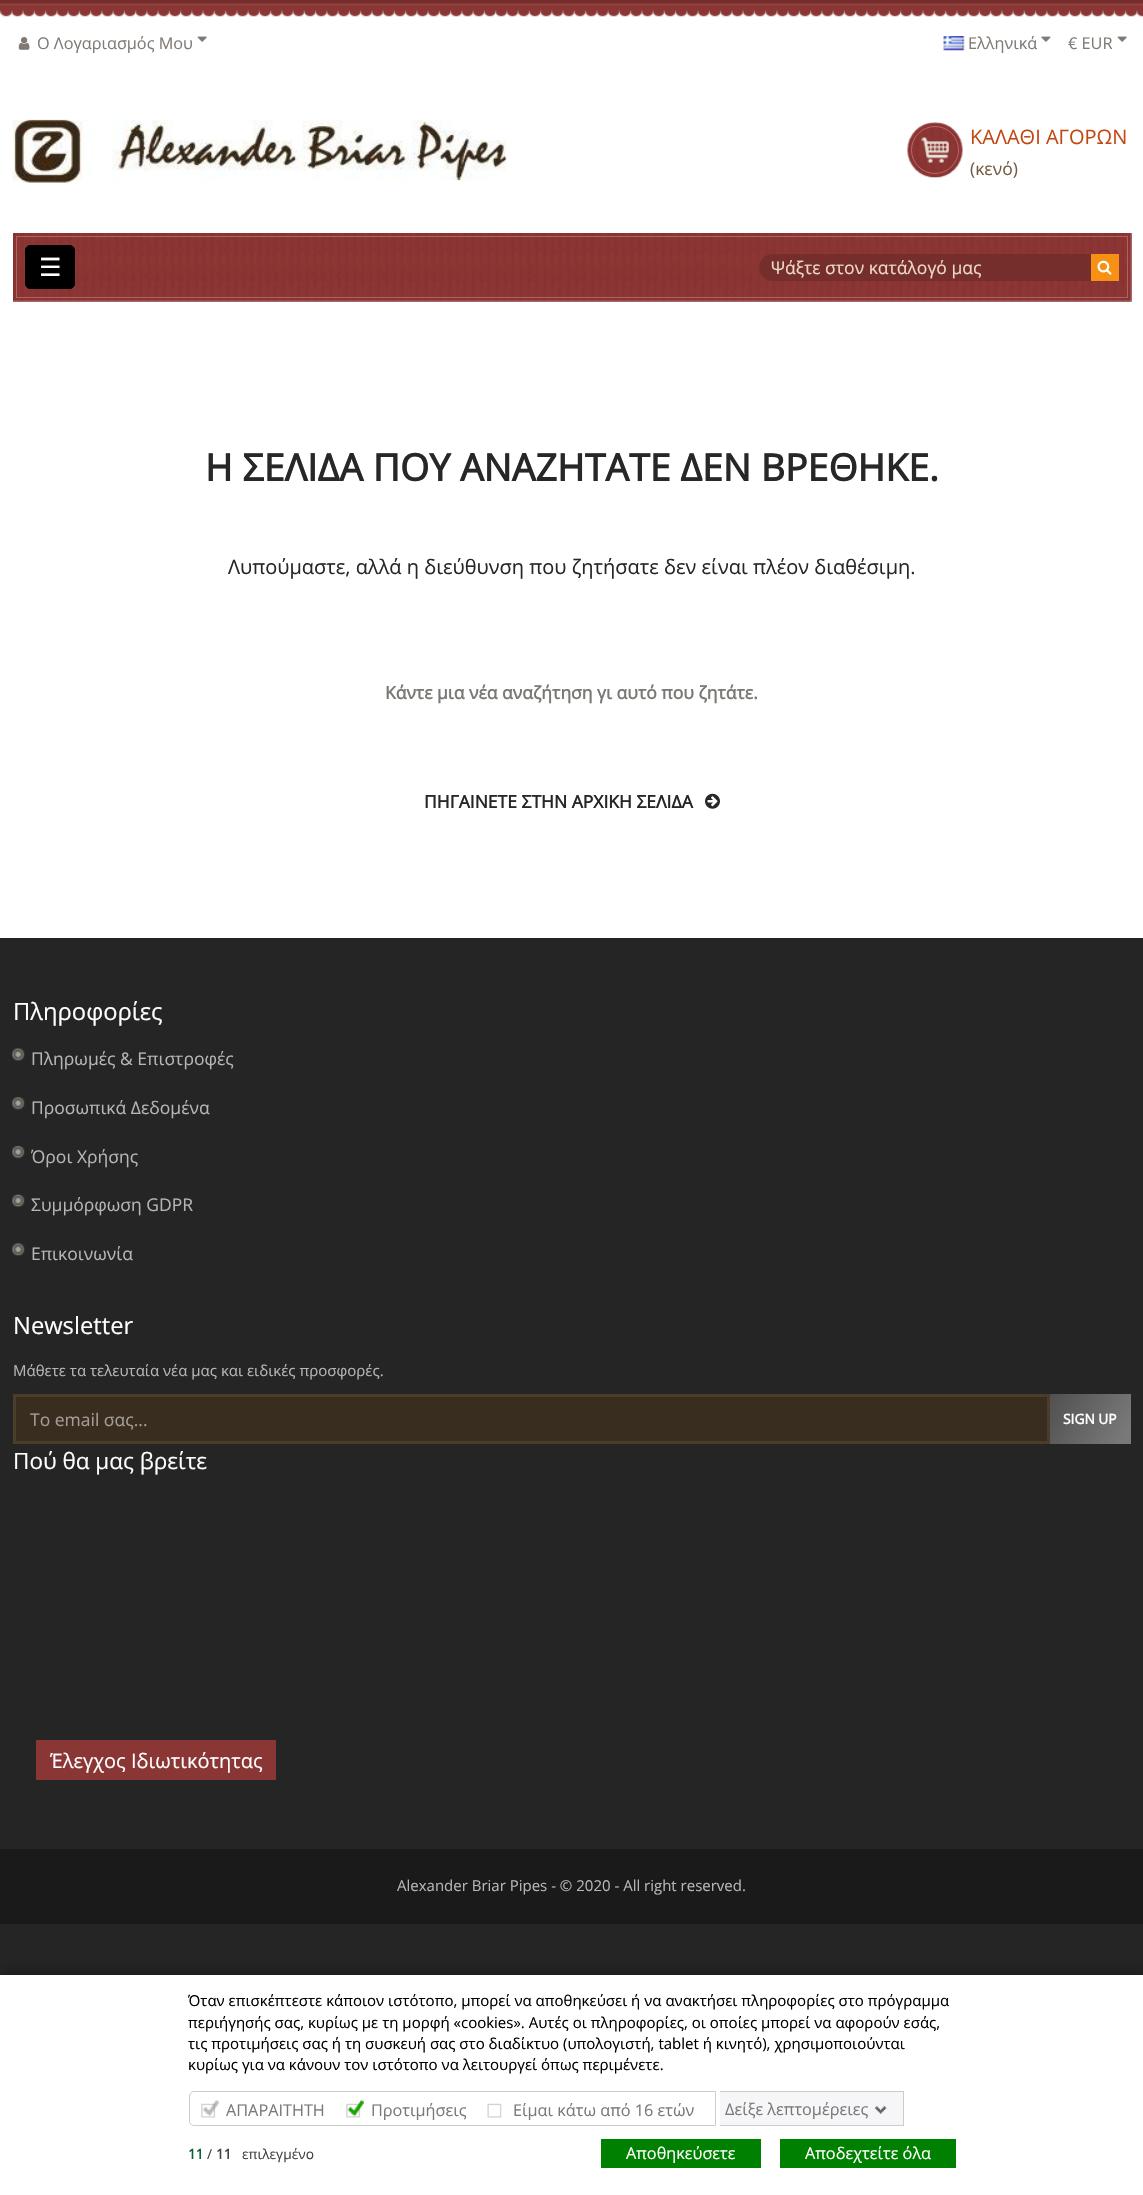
void draw(SkCanvas* canvas) {
  SkPaint paint;
  paint.setAntiAlias(true);
  auto face = [&](const char* family, int weight, float size, bool italic = false) {
    SkFontStyle style(weight, SkFontStyle::kNormal_Width,
      italic ? SkFontStyle::kItalic_Slant : SkFontStyle::kUpright_Slant);
    SkFont result(fontMgr->matchFamilyStyle(family, style), size);
    result.setSubpixel(true);
    return result;
  };
  auto paste = [&](const char* path, float x, float y, float w, float h) {
    auto image = SkImages::DeferredFromEncodedData(SkData::MakeFromFileName(path));
    canvas->drawImageRect(image, SkRect::MakeXYWH(x, y, w, h), SkSamplingOptions());
  };
  auto shape = [&](const char* data, bool evenOdd = false) {
    SkPath result = *SkParsePath::FromSVGString(data);
    if (evenOdd) result.setFillType(SkPathFillType::kEvenOdd);
    return result;
  };
  canvas->clear(0xffffffff);
  paste("img/1.png", 0, 0, 1143, 17);
  paste("img/2.png", 18, 37, 12, 13);
  paste("img/3.png", 197, 36, 10, 6);
  paste("img/4.png", 943, 36, 22, 15);
  paste("img/5.png", 1041, 36, 10, 6);
  paste("img/3.png", 1117, 36, 10, 6);
  paste("img/6.png", 12, 119, 495, 64);
  paste("img/7.png", 907, 122, 56, 56);
  paste("img/8.png", 921, 137, 28, 26);
  paint.setStroke(true);
  paint.setStrokeWidth(1);
  paint.setColor(0xffbe6263);
  canvas->drawCircle(935, 150, 23.5f, paint);
  paste("img/9.png", 13, 233, 1119, 69);
  paint.setColor(0xffb06162);
  canvas->drawRect(SkRect::MakeXYWH(16.5f, 236.5f, 1111, 61), paint);
  paint.setStroke(false);
  paint.setColor(0xff000000);
  canvas->drawRoundRect(SkRect::MakeXYWH(25.5f, 245.5f, 49, 43), 4.5f, 4.5f, paint);
  paint.setStroke(true);
  canvas->drawRoundRect(SkRect::MakeXYWH(25.5f, 245.5f, 49, 43), 4.5f, 4.5f, paint);
  paint.setStroke(false);
  paint.setColor(0xff762e2c);
  canvas->drawPath(shape("M772.5 254H1119V281H772.5C765 281 759 275 759 267.5C759 260 765 254 772.5 254Z"), paint);
  paint.setColor(0xfff69115);
  canvas->drawRect(SkRect::MakeXYWH(1091, 254, 28, 27), paint);
  paste("img/10.png", 1097, 260, 15, 15);
  paste("img/11.png", 705, 793, 15, 16);
  paint.setColor(0xff252525);
  canvas->drawRect(SkRect::MakeXYWH(0, 938, 1143, 1037), paint);
  paste("img/12.png", 12, 1048, 13, 13);
  paste("img/13.png", 12, 1097, 13, 13);
  paste("img/14.png", 12, 1145, 13, 14);
  paste("img/15.png", 12, 1194, 13, 13);
  paste("img/12.png", 12, 1243, 13, 13);
  paint.setColor(0xff392d1f);
  canvas->drawRect(SkRect::MakeXYWH(14.5f, 1395.5f, 1034, 47), paint);
  paint.setStroke(true);
  paint.setStrokeWidth(3);
  paint.setColor(0xff4c3d2b);
  canvas->drawRect(SkRect::MakeXYWH(14.5f, 1395.5f, 1034, 47), paint);
  paint.setStroke(false);
  {
    const SkColor colors[] = {0xff4f4f4f, 0xff797979};
    const float stops[] = {0, 0.9f};
    const SkPoint ends[] = {{1047, 1394}, {1132, 1443}};
    paint.setShader(SkGradientShader::MakeLinear(ends, colors, stops, 2, SkTileMode::kClamp));
    paint.setAlpha(255);
  }
  canvas->drawRect(SkRect::MakeXYWH(1050, 1394, 81, 50), paint);
  paint.setShader(nullptr);
  paint.setColor(0xff8a3635);
  canvas->drawRect(SkRect::MakeXYWH(36, 1740, 240, 40), paint);
  paint.setColor(0xff1a1a1a);
  canvas->drawRect(SkRect::MakeXYWH(0, 1849, 1143, 75), paint);
  paint.setColor(0xff121212);
  paint.setMaskFilter(SkMaskFilter::MakeBlur(kNormal_SkBlurStyle, 9));
  canvas->drawRect(SkRect::MakeXYWH(0, 1975, 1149, 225), paint);
  paint.setMaskFilter(nullptr);
  paint.setColor(0xffffffff);
  canvas->drawRect(SkRect::MakeXYWH(0, 1975, 1143, 220), paint);
  paint.setStroke(true);
  paint.setStrokeWidth(1);
  paint.setColor(0xffcccccc);
  canvas->drawPath(shape("M194 2091.5H715.5V2125.5H194C191.5 2125.5 189.5 2123.5 189.5 2121V2096C189.5 2093.5 191.5 2091.5 194 2091.5Z"), paint);
  paste("img/16.png", 201, 2100, 18, 18);
  paste("img/17.png", 346, 2100, 18, 18);
  paste("img/18.png", 487, 2103, 15, 15);
  paint.setStroke(false);
  {
    const struct { float x, y, w, h; SkColor color; } items[] = {
      {720, 2092, 183, 33, 0xfff6f6f9},
      {720, 2091, 184, 1, 0xffcccccc},
      {903, 2091, 1, 35, 0xffcccccc},
      {720, 2125, 184, 1, 0xffcccccc},
    };
    for (auto [x, y, w, h, color] : items) {
      paint.setColor(color);
      canvas->drawRect(SkRect::MakeXYWH(x, y, w, h), paint);
    }
  }
  paste("img/19.png", 875, 2106, 12, 8);
  paint.setColor(0xff008000);
  canvas->drawRect(SkRect::MakeXYWH(601, 2139, 160, 29), paint);
  canvas->drawRect(SkRect::MakeXYWH(780, 2139, 176, 29), paint);
  auto f0 = face("Open Sans", 400, 16.25f);
  paint.setColor(0xff807a75);
  {
    const struct { const char* s; float x, y; } items[] = {
      {"Ο Λογαριασμός Μου", 37, 49},
      {"Ελληνικά", 968, 49},
      {"€ EUR", 1068, 49},
    };
    for (auto [s, x, y] : items) {
      canvas->drawString(s, x, y, f0, paint);
    }
  }
  auto f1 = face("Open Sans", 400, 20);
  paint.setColor(0xffc24913);
  canvas->drawString("ΚΑΛΑΘΙ ΑΓΟΡΩΝ", 970, 144, f1, paint);
  auto f2 = face("Open Sans", 400, 17.5f);
  paint.setColor(0xff735d42);
  canvas->drawString("(κενό)", 970, 175, f2, paint);
  auto f3 = face("DejaVu Sans", 400, 25);
  paint.setColor(0xffffffff);
  canvas->drawString("☰", 39, 276, f3, paint);
  paint.setColor(0xffeadac6);
  canvas->drawString("Ψάξτε στον κατάλογό μας", 771, 274, f2, paint);
  auto f4 = face("Open Sans", 700, 37.5f);
  paint.setColor(0xff272727);
  canvas->drawString("Η ΣΕΛΙΔΑ ΠΟΥ ΑΝΑΖΗΤΑΤΕ ΔΕΝ ΒΡΕΘΗΚΕ.", 205, 481, f4, paint);
  canvas->drawString("Λυπούμαστε, αλλά η διεύθυνση που ζητήσατε δεν είναι πλέον διαθέσιμη.", 228, 574, f1, paint);
  auto f5 = face("Open Sans", 700, 17.5f);
  paint.setColor(0xff797975);
  canvas->drawString("Κάντε μια νέα αναζήτηση γι αυτό που ζητάτε.", 385, 699, f5, paint);
  paint.setColor(0xff272727);
  canvas->drawString("ΠΗΓΑΙΝΕΤΕ ΣΤΗΝ ΑΡΧΙΚΗ ΣΕΛΙΔΑ", 424, 808, f5, paint);
  auto f6 = face("Open Sans", 400, 23.75f);
  paint.setColor(0xffffffff);
  canvas->drawString("Πληροφορίες", 13, 1020, f6, paint);
  paint.setColor(0xffb6b6b6);
  {
    const struct { const char* s; float x, y; } items[] = {
      {"Πληρωμές & Επιστροφές", 31, 1065},
      {"Προσωπικά Δεδομένα", 31, 1114},
      {"Όροι Χρήσης", 31, 1163},
      {"Συμμόρφωση GDPR", 31, 1211},
      {"Επικοινωνία", 31, 1260},
    };
    for (auto [s, x, y] : items) {
      canvas->drawString(s, x, y, f2, paint);
    }
  }
  paint.setColor(0xffffffff);
  canvas->drawString("Newsletter", 13, 1334, f6, paint);
  auto f7 = face("Open Sans", 400, 15);
  paint.setColor(0xffb6b6b6);
  canvas->drawString("Μάθετε τα τελευταία νέα μας και ειδικές προσφορές.", 13, 1376, f7, paint);
  paint.setColor(0xffa49e98);
  canvas->drawString("Το email σας...", 30, 1426, f2, paint);
  auto f8 = face("Open Sans", 700, 13.75f);
  paint.setColor(0xffffffff);
  canvas->drawString("SIGN UP", 1063, 1424, f8, paint);
  auto f9 = face("Open Sans", 400, 22.5f);
  canvas->drawString("Πού θα μας βρείτε", 13, 1469, f9, paint);
  canvas->drawString("Έλεγχος Ιδιωτικότητας", 50, 1768, f1, paint);
  paint.setColor(0xffb6b6b6);
  canvas->drawString("Alexander Briar Pipes - © 2020 - All right reserved.", 397, 1891, f7, paint);
  paint.setColor(0xff000000);
  {
    const struct { const char* s; float x, y; } items[] = {
      {"Όταν επισκέπτεστε κάποιον ιστότοπο, μπορεί να αποθηκεύσει ή να ανακτήσει πληροφορίες στο πρόγραμμα", 188, 2006},
      {"περιήγησής σας, κυρίως με τη μορφή «cookies». Αυτές οι πληροφορίες, οι οποίες μπορεί να αφορούν εσάς,", 188, 2028},
      {"τις προτιμήσεις σας ή τη συσκευή σας στο διαδίκτυο (υπολογιστή, tablet ή κινητό), χρησιμοποιούνται", 188, 2049},
      {"κυρίως για να κάνουν τον ιστότοπο να λειτουργεί όπως περιμένετε.", 188, 2070},
    };
    for (auto [s, x, y] : items) {
      canvas->drawString(s, x, y, f7, paint);
    }
  }
  paint.setColor(0xff797975);
  {
    const struct { const char* s; float x, y; } items[] = {
      {"ΑΠΑΡΑΙΤΗΤΗ", 226, 2116},
      {"Προτιμήσεις", 371, 2116},
      {"Είμαι κάτω από 16 ετών", 513, 2116},
      {"Δείξε λεπτομέρειες", 725, 2115},
    };
    for (auto [s, x, y] : items) {
      canvas->drawString(s, x, y, f0, paint);
    }
  }
  paint.setColor(0xff006131);
  canvas->drawString("11", 188, 2159, f8, paint);
  auto f10 = face("Open Sans", 400, 13.75f);
  paint.setColor(0xff414141);
  canvas->drawString("/", 207, 2159, f10, paint);
  canvas->drawString("11", 216, 2159, f8, paint);
  canvas->drawString("επιλεγμένο", 242, 2159, f10, paint);
  paint.setColor(0xffffffff);
  canvas->drawString("Αποθηκεύσετε", 626, 2159, f0, paint);
  canvas->drawString("Αποδεχτείτε όλα", 805, 2159, f0, paint);
}
